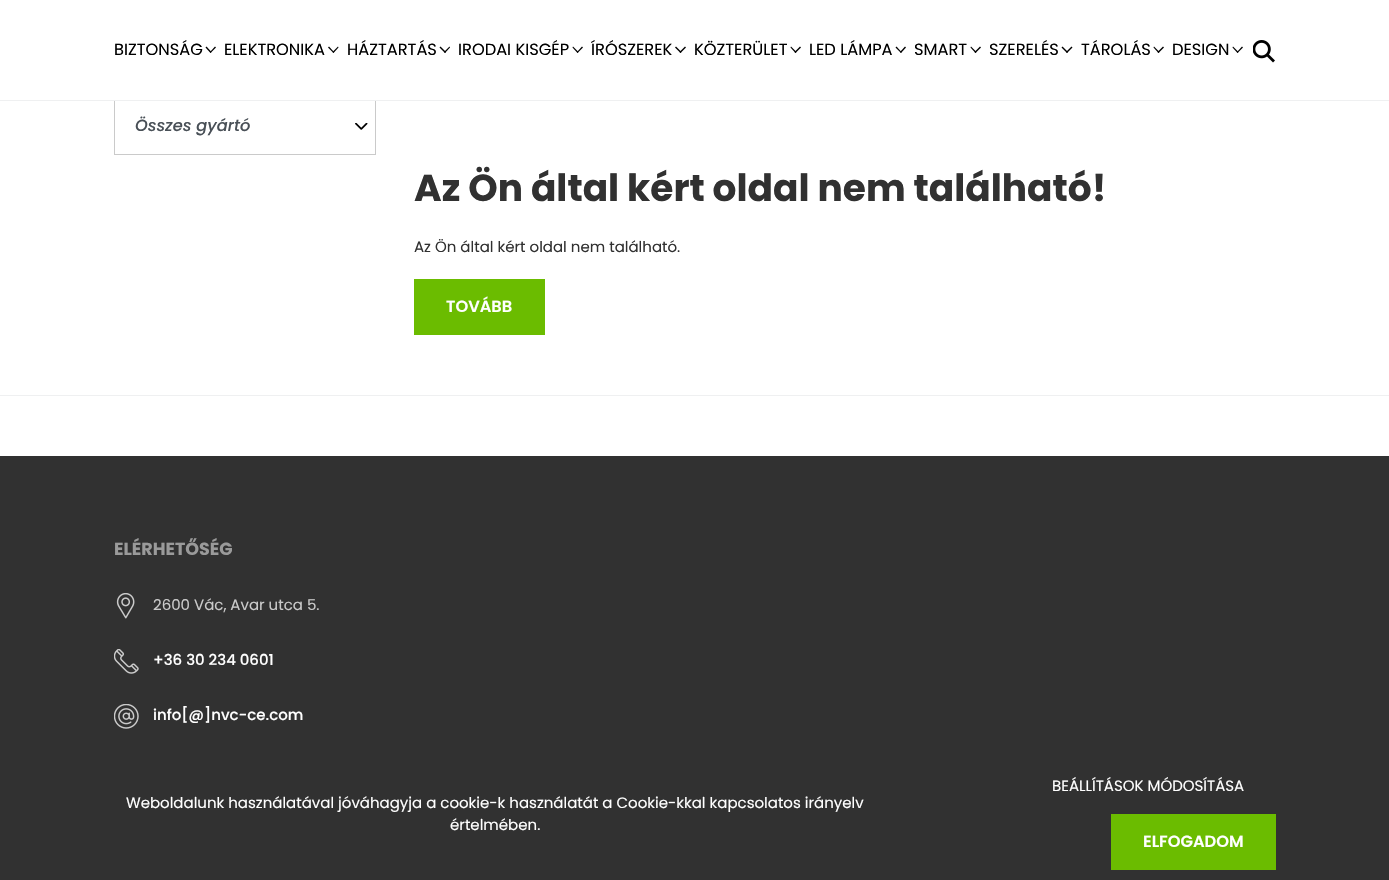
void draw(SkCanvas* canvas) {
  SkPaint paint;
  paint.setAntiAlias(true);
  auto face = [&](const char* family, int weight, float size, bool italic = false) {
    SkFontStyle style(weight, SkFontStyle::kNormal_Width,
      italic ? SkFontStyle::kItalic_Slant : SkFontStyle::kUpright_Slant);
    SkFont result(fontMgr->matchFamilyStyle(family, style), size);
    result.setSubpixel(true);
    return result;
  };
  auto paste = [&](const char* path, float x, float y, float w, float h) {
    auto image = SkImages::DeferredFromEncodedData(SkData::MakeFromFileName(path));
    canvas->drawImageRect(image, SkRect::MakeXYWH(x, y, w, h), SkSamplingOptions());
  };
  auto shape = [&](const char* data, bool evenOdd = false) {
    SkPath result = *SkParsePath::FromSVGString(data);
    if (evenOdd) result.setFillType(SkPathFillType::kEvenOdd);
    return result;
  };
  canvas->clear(0xffffffff);
  paste("img/2.png", 355, 123, 13, 7);
  paint.setStroke(true);
  paint.setStrokeWidth(1);
  paint.setColor(0xffcacaca);
  canvas->drawRect(SkRect::MakeXYWH(114.5f, 98.5f, 261, 56), paint);
  paint.setStroke(false);
  paint.setColor(0xffffffff);
  canvas->drawRect(SkRect::MakeXYWH(114, 98, 262, 2), paint);
  paint.setColor(0xffeff0f1);
  canvas->drawRect(SkRect::MakeXYWH(0, 100, 1389, 1), paint);
  paint.setColor(0xff000000);
  canvas->drawPath(shape("M215 46.5L216 47.5L210.5 53L210 52Z"), paint);
  canvas->drawPath(shape("M206.5 46.5L211.5 52L210.5 53L205.5 47.5Z"), paint);
  canvas->drawPath(shape("M338 46.5L338.5 47.5L333.5 53L332.5 52Z"), paint);
  canvas->drawPath(shape("M329 46.5L334 52L333.5 53L328 47.5Z"), paint);
  canvas->drawPath(shape("M449.5 46.5L450 47.5L445 53L444 52Z"), paint);
  canvas->drawPath(shape("M440.5 46.5L446 52L445 53L439.5 47.5Z"), paint);
  canvas->drawPath(shape("M582 46.5L583 47.5L577.5 53L577 52Z"), paint);
  canvas->drawPath(shape("M573 46.5L578.5 52L577.5 53L572.5 47.5Z"), paint);
  canvas->drawPath(shape("M685 46.5L686 47.5L680.5 53L679.5 52Z"), paint);
  canvas->drawPath(shape("M676 46.5L681.5 52L680.5 53L675 47.5Z"), paint);
  canvas->drawPath(shape("M800 46.5L801 47.5L795.5 53L794.5 52Z"), paint);
  canvas->drawPath(shape("M791 46.5L796.5 52L795.5 53L790.5 47.5Z"), paint);
  canvas->drawPath(shape("M905 46.5L906 47.5L901 53L900 52Z"), paint);
  canvas->drawPath(shape("M896.5 46.5L901.5 52L901 53L895.5 47.5Z"), paint);
  canvas->drawPath(shape("M980 46.5L981 47.5L975.5 53L974.5 52Z"), paint);
  canvas->drawPath(shape("M971 46.5L976.5 52L975.5 53L970.5 47.5Z"), paint);
  canvas->drawPath(shape("M1071.5 46.5L1072.5 47.5L1067 53L1066 52Z"), paint);
  canvas->drawPath(shape("M1062.5 46.5L1068 52L1067 53L1061.5 47.5Z"), paint);
  canvas->drawPath(shape("M1163 46.5L1164 47.5L1158.5 53L1157.5 52Z"), paint);
  canvas->drawPath(shape("M1154 46.5L1159.5 52L1158.5 53L1153.5 47.5Z"), paint);
  canvas->drawPath(shape("M1242 46.5L1243 47.5L1237.5 53L1237 52Z"), paint);
  canvas->drawPath(shape("M1233 46.5L1238.5 52L1237.5 53L1232.5 47.5Z"), paint);
  paste("img/1.png", 1253, 40, 22, 23);
  {
    const struct { float x, y, w, h; SkColor color; } items[] = {
      {414, 279, 131, 56, 0xff6bbc00},
      {0, 395, 1389, 1, 0xffeff0f1},
      {0, 456, 1389, 424, 0xff313131},
    };
    for (auto [x, y, w, h, color] : items) {
      paint.setColor(color);
      canvas->drawRect(SkRect::MakeXYWH(x, y, w, h), paint);
    }
  }
  paste("img/3.png", 116, 593, 19, 26);
  paste("img/4.png", 114, 649, 25, 25);
  paste("img/5.png", 114, 704, 25, 25);
  paint.setColor(0xff6bbc00);
  canvas->drawRect(SkRect::MakeXYWH(1111, 814, 165, 56), paint);
  auto f0 = face("Poppins", 400, 16.25f);
  paint.setColor(0xff000000);
  {
    const struct { const char* s; float x, y; } items[] = {
      {"BIZTONSÁG", 114, 55},
      {"ELEKTRONIKA", 224, 55},
      {"HÁZTARTÁS", 347, 55},
      {"IRODAI KISGÉP", 458, 55},
      {"ÍRÓSZEREK", 591, 55},
      {"KÖZTERÜLET", 694, 55},
      {"LED LÁMPA", 809, 55},
      {"SMART", 914, 55},
      {"SZERELÉS", 989, 55},
      {"TÁROLÁS", 1081, 55},
      {"DESIGN", 1172, 55},
    };
    for (auto [s, x, y] : items) {
      canvas->drawString(s, x, y, f0, paint);
    }
  }
  auto f1 = face("Poppins", 500, 16.25f, true);
  paint.setColor(0xff495057);
  canvas->drawString("Összes gyártó", 135, 131, f1, paint);
  auto f2 = face("Poppins", 700, 37.5f);
  paint.setColor(0xff313131);
  canvas->drawString("Az Ön által kért oldal nem található!", 414, 201, f2, paint);
  auto f3 = face("Poppins", 400, 15);
  canvas->drawString("Az Ön által kért oldal nem található.", 414, 252, f3, paint);
  auto f4 = face("Poppins", 600, 16.25f);
  paint.setColor(0xffffffff);
  canvas->drawString("TOVÁBB", 446, 312, f4, paint);
  auto f5 = face("Poppins", 700, 17.5f);
  paint.setColor(0xff9a9a9a);
  canvas->drawString("ELÉRHETŐSÉG", 114, 555, f5, paint);
  paint.setColor(0xffcacaca);
  canvas->drawString("2600 Vác, Avar utca 5.", 153, 610, f3, paint);
  auto f6 = face("Poppins", 500, 15);
  paint.setColor(0xffffffff);
  canvas->drawString("+36 30 234 0601", 153, 665, f6, paint);
  canvas->drawString("info[@]nvc-ce.com", 153, 720, f6, paint);
  {
    const struct { const char* s; float x, y; } items[] = {
      {"Weboldalunk használatával jóváhagyja a cookie-k használatát a Cookie-kkal kapcsolatos irányelv", 126, 808},
      {"értelmében.", 450, 830},
      {"BEÁLLÍTÁSOK MÓDOSÍTÁSA", 1052, 791},
    };
    for (auto [s, x, y] : items) {
      canvas->drawString(s, x, y, f3, paint);
    }
  }
  canvas->drawString("ELFOGADOM", 1143, 847, f4, paint);
}
